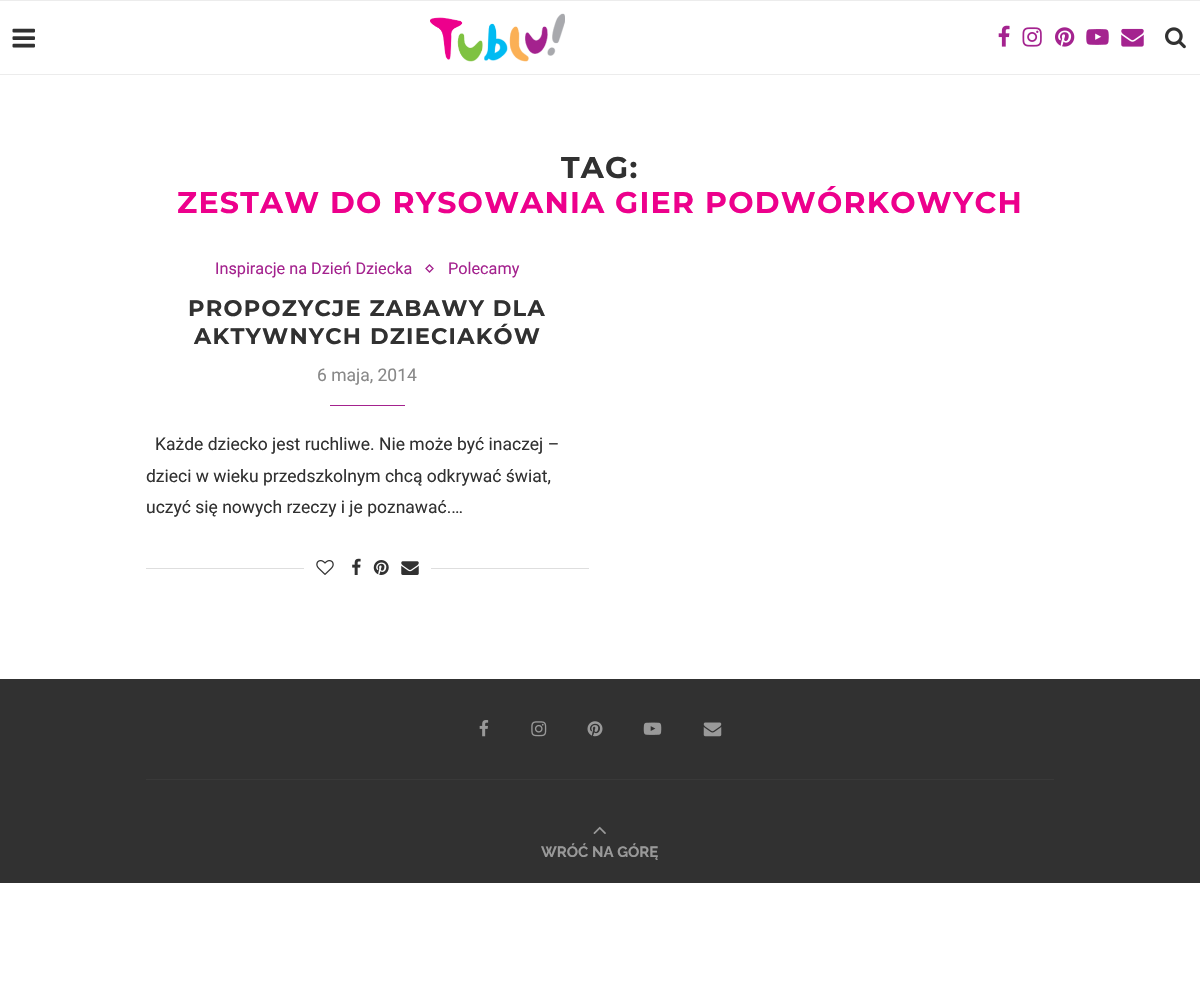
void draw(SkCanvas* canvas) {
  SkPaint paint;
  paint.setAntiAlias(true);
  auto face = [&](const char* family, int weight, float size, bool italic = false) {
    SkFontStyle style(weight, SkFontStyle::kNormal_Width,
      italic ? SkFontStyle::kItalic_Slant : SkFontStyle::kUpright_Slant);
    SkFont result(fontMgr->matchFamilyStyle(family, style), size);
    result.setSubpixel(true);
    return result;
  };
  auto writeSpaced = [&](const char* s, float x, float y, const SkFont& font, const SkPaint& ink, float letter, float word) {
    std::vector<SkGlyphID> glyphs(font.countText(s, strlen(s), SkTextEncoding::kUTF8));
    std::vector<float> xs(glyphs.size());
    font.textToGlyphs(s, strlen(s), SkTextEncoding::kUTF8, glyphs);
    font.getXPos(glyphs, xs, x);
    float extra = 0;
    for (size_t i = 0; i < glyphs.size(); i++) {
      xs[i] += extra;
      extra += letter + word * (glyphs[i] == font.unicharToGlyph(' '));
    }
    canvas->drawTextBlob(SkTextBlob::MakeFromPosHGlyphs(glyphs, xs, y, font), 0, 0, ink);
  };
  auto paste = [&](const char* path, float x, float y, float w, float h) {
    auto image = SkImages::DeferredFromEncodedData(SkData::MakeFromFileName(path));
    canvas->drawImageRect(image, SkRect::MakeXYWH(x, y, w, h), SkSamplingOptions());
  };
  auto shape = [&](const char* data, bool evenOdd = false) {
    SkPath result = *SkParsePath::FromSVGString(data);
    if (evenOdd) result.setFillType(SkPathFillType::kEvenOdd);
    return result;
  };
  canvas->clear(0xffffffff);
  paint.setColor(0xffececec);
  canvas->drawRect(SkRect::MakeXYWH(0, 0, 1200, 1), paint);
  canvas->drawRect(SkRect::MakeXYWH(0, 74, 1200, 1), paint);
  paste("img/1.png", 12, 28, 23, 20);
  paste("img/2.png", 430, 13, 135, 49);
  paste("img/3.png", 998, 25, 12, 22);
  paste("img/4.png", 1022, 27, 20, 20);
  paste("img/5.png", 1055, 27, 20, 20);
  paste("img/6.png", 1086, 29, 23, 16);
  paste("img/7.png", 1121, 28, 23, 19);
  paste("img/8.png", 1165, 27, 21, 22);
  paint.setStroke(true);
  paint.setStrokeWidth(1.3f);
  paint.setColor(0xffa4228e);
  canvas->drawPath(shape("M429.5 265L433 268.5L429.5 272L426 268.5Z"), paint);
  paint.setStroke(false);
  {
    const struct { float x, y, w, h; SkColor color; } items[] = {
      {330, 405, 75, 1, 0xffa4228e},
      {146, 568, 443, 1, 0xffdedede},
      {304, 568, 127, 1, 0xffffffff},
    };
    for (auto [x, y, w, h, color] : items) {
      paint.setColor(color);
      canvas->drawRect(SkRect::MakeXYWH(x, y, w, h), paint);
    }
  }
  paste("img/9.png", 316, 560, 18, 15);
  paste("img/10.png", 352, 558, 9, 17);
  paste("img/11.png", 373, 560, 16, 15);
  paste("img/12.png", 401, 561, 18, 14);
  paint.setColor(0xff313131);
  canvas->drawRect(SkRect::MakeXYWH(0, 679, 1200, 204), paint);
  paint.setColor(0xff393939);
  canvas->drawRect(SkRect::MakeXYWH(146, 779, 908, 1), paint);
  paste("img/13.png", 479, 720, 10, 17);
  paste("img/14.png", 531, 721, 16, 16);
  paste("img/15.png", 587, 721, 16, 16);
  paste("img/16.png", 643, 722, 19, 13);
  paste("img/17.png", 703, 722, 19, 15);
  paste("img/18.png", 593, 826, 13, 8);
  auto f0 = face("Montserrat", 700, 30);
  paint.setColor(0xff313131);
  writeSpaced("TAG:", 561, 178, f0, paint, 1.25f, 0);
  paint.setColor(0xffed008c);
  writeSpaced("ZESTAW DO RYSOWANIA GIER PODWÓRKOWYCH", 177, 213, f0, paint, 1.25f, 0);
  auto f1 = face("Roboto", 400, 16.25f);
  paint.setColor(0xffa4228e);
  canvas->drawString("Inspiracje na Dzień Dziecka", 215, 274, f1, paint);
  canvas->drawString("Polecamy", 448, 274, f1, paint);
  auto f2 = face("Montserrat", 700, 22.5f);
  paint.setColor(0xff313131);
  writeSpaced("PROPOZYCJE ZABAWY DLA", 188, 316, f2, paint, 1.25f, 0);
  writeSpaced("AKTYWNYCH DZIECIAKÓW", 194, 344, f2, paint, 1.25f, 0);
  auto f3 = face("Roboto", 400, 17.5f);
  paint.setColor(0xff888888);
  canvas->drawString("6 maja, 2014", 317, 381, f3, paint);
  paint.setColor(0xff313131);
  {
    const struct { const char* s; float x, y; } items[] = {
      {"Każde dziecko jest ruchliwe. Nie może być inaczej –", 155, 450},
      {"dzieci w wieku przedszkolnym chcą odkrywać świat,", 146, 482},
      {"uczyć się nowych rzeczy i je poznawać.…", 146, 513},
    };
    for (auto [s, x, y] : items) {
      canvas->drawString(s, x, y, f3, paint);
    }
  }
  auto f4 = face("Raleway", 700, 15);
  paint.setColor(0xff999999);
  canvas->drawString("WRÓĆ NA GÓRĘ", 541, 857, f4, paint);
}
